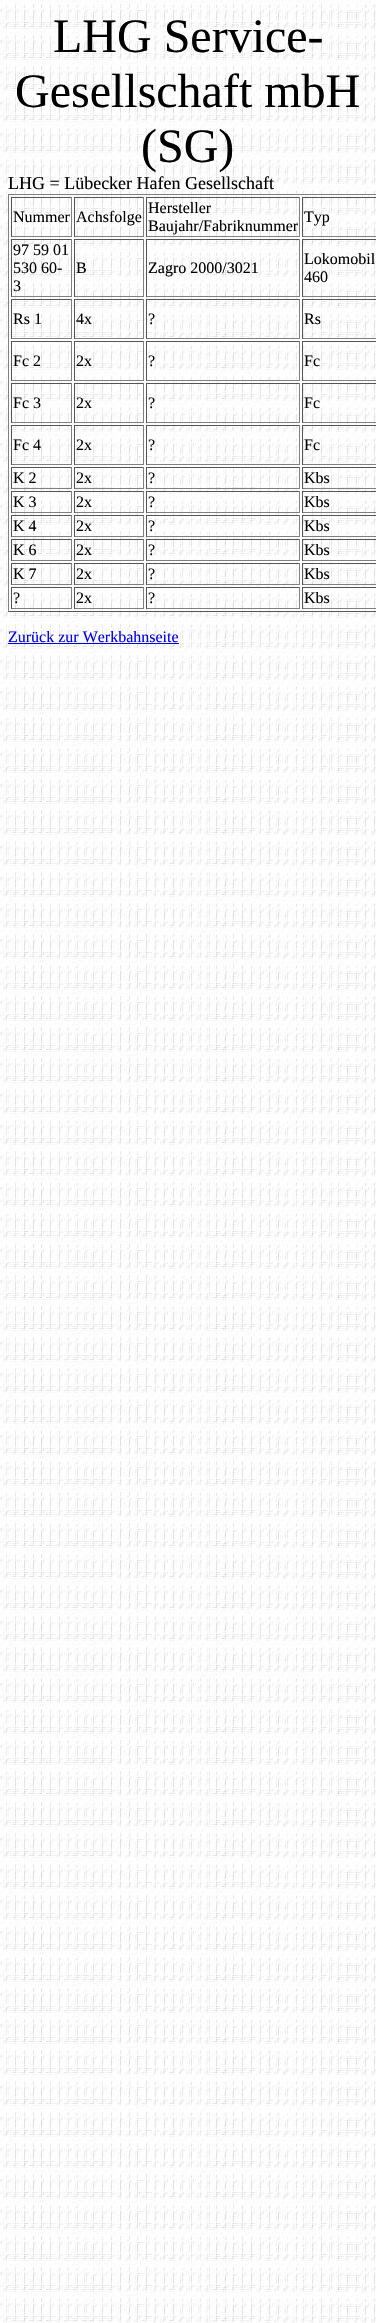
void draw(SkCanvas* canvas) {
  SkPaint paint;
  paint.setAntiAlias(true);
  auto face = [&](const char* family, int weight, float size, bool italic = false) {
    SkFontStyle style(weight, SkFontStyle::kNormal_Width,
      italic ? SkFontStyle::kItalic_Slant : SkFontStyle::kUpright_Slant);
    SkFont result(fontMgr->matchFamilyStyle(family, style), size);
    result.setSubpixel(true);
    return result;
  };
  auto paste = [&](const char* path, float x, float y, float w, float h) {
    auto image = SkImages::DeferredFromEncodedData(SkData::MakeFromFileName(path));
    canvas->drawImageRect(image, SkRect::MakeXYWH(x, y, w, h), SkSamplingOptions());
  };
  canvas->clear(0xffffffff);
  paste("img/1.png", 0, 0, 376, 2323);
  {
    const struct { float x, y, w, h; SkColor color; } items[] = {
      {8, 194, 368, 1, 0xff808080},
      {8, 611, 368, 1, 0xff555555},
      {8, 194, 1, 418, 0xff808080},
      {11, 197, 61, 1, 0xff555555},
      {71, 197, 1, 40, 0xff808080},
      {11, 236, 61, 1, 0xff808080},
      {11, 197, 1, 40, 0xff555555},
      {74, 197, 70, 1, 0xff555555},
      {143, 197, 1, 40, 0xff808080},
      {74, 236, 70, 1, 0xff808080},
      {74, 197, 1, 40, 0xff555555},
      {146, 197, 154, 1, 0xff555555},
      {299, 197, 1, 40, 0xff808080},
      {146, 236, 154, 1, 0xff808080},
      {146, 197, 1, 40, 0xff555555},
      {302, 197, 74, 1, 0xff555555},
      {302, 236, 74, 1, 0xff808080},
      {302, 197, 1, 40, 0xff555555},
      {11, 239, 61, 1, 0xff555555},
      {71, 239, 1, 58, 0xff808080},
      {11, 296, 61, 1, 0xff808080},
      {11, 239, 1, 58, 0xff555555},
      {74, 239, 70, 1, 0xff555555},
      {143, 239, 1, 58, 0xff808080},
      {74, 296, 70, 1, 0xff808080},
      {74, 239, 1, 58, 0xff555555},
      {146, 239, 154, 1, 0xff555555},
      {299, 239, 1, 58, 0xff808080},
      {146, 296, 154, 1, 0xff808080},
      {146, 239, 1, 58, 0xff555555},
      {302, 239, 74, 1, 0xff555555},
      {302, 296, 74, 1, 0xff808080},
      {302, 239, 1, 58, 0xff555555},
      {11, 299, 61, 1, 0xff555555},
      {71, 299, 1, 40, 0xff808080},
      {11, 338, 61, 1, 0xff808080},
      {11, 299, 1, 40, 0xff555555},
      {74, 299, 70, 1, 0xff555555},
      {143, 299, 1, 40, 0xff808080},
      {74, 338, 70, 1, 0xff808080},
      {74, 299, 1, 40, 0xff555555},
      {146, 299, 154, 1, 0xff555555},
      {299, 299, 1, 40, 0xff808080},
      {146, 338, 154, 1, 0xff808080},
      {146, 299, 1, 40, 0xff555555},
      {302, 299, 74, 1, 0xff555555},
      {302, 338, 74, 1, 0xff808080},
      {302, 299, 1, 40, 0xff555555},
      {11, 341, 61, 1, 0xff555555},
      {71, 341, 1, 40, 0xff808080},
      {11, 380, 61, 1, 0xff808080},
      {11, 341, 1, 40, 0xff555555},
      {74, 341, 70, 1, 0xff555555},
      {143, 341, 1, 40, 0xff808080},
      {74, 380, 70, 1, 0xff808080},
      {74, 341, 1, 40, 0xff555555},
      {146, 341, 154, 1, 0xff555555},
      {299, 341, 1, 40, 0xff808080},
      {146, 380, 154, 1, 0xff808080},
      {146, 341, 1, 40, 0xff555555},
      {302, 341, 74, 1, 0xff555555},
      {302, 380, 74, 1, 0xff808080},
      {302, 341, 1, 40, 0xff555555},
      {11, 383, 61, 1, 0xff555555},
      {71, 383, 1, 40, 0xff808080},
      {11, 422, 61, 1, 0xff808080},
      {11, 383, 1, 40, 0xff555555},
      {74, 383, 70, 1, 0xff555555},
      {143, 383, 1, 40, 0xff808080},
      {74, 422, 70, 1, 0xff808080},
      {74, 383, 1, 40, 0xff555555},
      {146, 383, 154, 1, 0xff555555},
      {299, 383, 1, 40, 0xff808080},
      {146, 422, 154, 1, 0xff808080},
      {146, 383, 1, 40, 0xff555555},
      {302, 383, 74, 1, 0xff555555},
      {302, 422, 74, 1, 0xff808080},
      {302, 383, 1, 40, 0xff555555},
      {11, 425, 61, 1, 0xff555555},
      {71, 425, 1, 40, 0xff808080},
      {11, 464, 61, 1, 0xff808080},
      {11, 425, 1, 40, 0xff555555},
      {74, 425, 70, 1, 0xff555555},
      {143, 425, 1, 40, 0xff808080},
      {74, 464, 70, 1, 0xff808080},
      {74, 425, 1, 40, 0xff555555},
      {146, 425, 154, 1, 0xff555555},
      {299, 425, 1, 40, 0xff808080},
      {146, 464, 154, 1, 0xff808080},
      {146, 425, 1, 40, 0xff555555},
      {302, 425, 74, 1, 0xff555555},
      {302, 464, 74, 1, 0xff808080},
      {302, 425, 1, 40, 0xff555555},
      {11, 467, 61, 1, 0xff555555},
      {71, 467, 1, 22, 0xff808080},
      {11, 488, 61, 1, 0xff808080},
      {11, 467, 1, 22, 0xff555555},
      {74, 467, 70, 1, 0xff555555},
      {143, 467, 1, 22, 0xff808080},
      {74, 488, 70, 1, 0xff808080},
      {74, 467, 1, 22, 0xff555555},
      {146, 467, 154, 1, 0xff555555},
      {299, 467, 1, 22, 0xff808080},
      {146, 488, 154, 1, 0xff808080},
      {146, 467, 1, 22, 0xff555555},
      {302, 467, 74, 1, 0xff555555},
      {302, 488, 74, 1, 0xff808080},
      {302, 467, 1, 22, 0xff555555},
      {11, 491, 61, 1, 0xff555555},
      {71, 491, 1, 22, 0xff808080},
      {11, 512, 61, 1, 0xff808080},
      {11, 491, 1, 22, 0xff555555},
      {74, 491, 70, 1, 0xff555555},
      {143, 491, 1, 22, 0xff808080},
      {74, 512, 70, 1, 0xff808080},
      {74, 491, 1, 22, 0xff555555},
      {146, 491, 154, 1, 0xff555555},
      {299, 491, 1, 22, 0xff808080},
      {146, 512, 154, 1, 0xff808080},
      {146, 491, 1, 22, 0xff555555},
      {302, 491, 74, 1, 0xff555555},
      {302, 512, 74, 1, 0xff808080},
      {302, 491, 1, 22, 0xff555555},
      {11, 515, 61, 1, 0xff555555},
      {71, 515, 1, 22, 0xff808080},
      {11, 536, 61, 1, 0xff808080},
      {11, 515, 1, 22, 0xff555555},
      {74, 515, 70, 1, 0xff555555},
      {143, 515, 1, 22, 0xff808080},
      {74, 536, 70, 1, 0xff808080},
      {74, 515, 1, 22, 0xff555555},
      {146, 515, 154, 1, 0xff555555},
      {299, 515, 1, 22, 0xff808080},
      {146, 536, 154, 1, 0xff808080},
      {146, 515, 1, 22, 0xff555555},
      {302, 515, 74, 1, 0xff555555},
      {302, 536, 74, 1, 0xff808080},
      {302, 515, 1, 22, 0xff555555},
      {11, 539, 61, 1, 0xff555555},
      {71, 539, 1, 22, 0xff808080},
      {11, 560, 61, 1, 0xff808080},
      {11, 539, 1, 22, 0xff555555},
      {74, 539, 70, 1, 0xff555555},
      {143, 539, 1, 22, 0xff808080},
      {74, 560, 70, 1, 0xff808080},
      {74, 539, 1, 22, 0xff555555},
      {146, 539, 154, 1, 0xff555555},
      {299, 539, 1, 22, 0xff808080},
      {146, 560, 154, 1, 0xff808080},
      {146, 539, 1, 22, 0xff555555},
      {302, 539, 74, 1, 0xff555555},
      {302, 560, 74, 1, 0xff808080},
      {302, 539, 1, 22, 0xff555555},
      {11, 563, 61, 1, 0xff555555},
      {71, 563, 1, 22, 0xff808080},
      {11, 584, 61, 1, 0xff808080},
      {11, 563, 1, 22, 0xff555555},
      {74, 563, 70, 1, 0xff555555},
      {143, 563, 1, 22, 0xff808080},
      {74, 584, 70, 1, 0xff808080},
      {74, 563, 1, 22, 0xff555555},
      {146, 563, 154, 1, 0xff555555},
      {299, 563, 1, 22, 0xff808080},
      {146, 584, 154, 1, 0xff808080},
      {146, 563, 1, 22, 0xff555555},
      {302, 563, 74, 1, 0xff555555},
      {302, 584, 74, 1, 0xff808080},
      {302, 563, 1, 22, 0xff555555},
      {11, 587, 61, 1, 0xff555555},
      {71, 587, 1, 22, 0xff808080},
      {11, 608, 61, 1, 0xff808080},
      {11, 587, 1, 22, 0xff555555},
      {74, 587, 70, 1, 0xff555555},
      {143, 587, 1, 22, 0xff808080},
      {74, 608, 70, 1, 0xff808080},
      {74, 587, 1, 22, 0xff555555},
      {146, 587, 154, 1, 0xff555555},
      {299, 587, 1, 22, 0xff808080},
      {146, 608, 154, 1, 0xff808080},
      {146, 587, 1, 22, 0xff555555},
      {302, 587, 74, 1, 0xff555555},
      {302, 608, 74, 1, 0xff808080},
      {302, 587, 1, 22, 0xff555555},
      {8, 643, 171, 1, 0xff0000ee},
    };
    for (auto [x, y, w, h, color] : items) {
      paint.setColor(color);
      canvas->drawRect(SkRect::MakeXYWH(x, y, w, h), paint);
    }
  }
  auto f0 = face("Liberation Serif", 400, 48);
  paint.setColor(0xff000000);
  {
    const struct { const char* s; float x, y; } items[] = {
      {"LHG Service-", 53, 52},
      {"Gesellschaft mbH", 15, 107},
      {"(SG)", 141, 162},
    };
    for (auto [s, x, y] : items) {
      canvas->drawString(s, x, y, f0, paint);
    }
  }
  auto f1 = face("Liberation Serif", 400, 18);
  canvas->drawString("LHG = Lübecker Hafen Gesellschaft", 8, 189, f1, paint);
  auto f2 = face("Liberation Serif", 400, 16);
  {
    const struct { const char* s; float x, y; } items[] = {
      {"Nummer", 13, 222},
      {"Achsfolge", 76, 222},
      {"Hersteller", 148, 213},
      {"Baujahr/Fabriknummer", 148, 231},
      {"Typ", 304, 222},
      {"97 59 01", 13, 255},
      {"530 60-", 13, 273},
      {"3", 13, 291},
      {"B", 76, 273},
      {"Zagro 2000/3021", 148, 273},
      {"Lokomobil", 304, 264},
      {"460", 304, 282},
      {"Rs 1", 13, 324},
      {"4x", 76, 324},
      {"?", 148, 324},
      {"Rs", 304, 324},
      {"Fc 2", 13, 366},
      {"2x", 76, 366},
      {"?", 148, 366},
      {"Fc", 304, 366},
      {"Fc 3", 13, 408},
      {"2x", 76, 408},
      {"?", 148, 408},
      {"Fc", 304, 408},
      {"Fc 4", 13, 450},
      {"2x", 76, 450},
      {"?", 148, 450},
      {"Fc", 304, 450},
      {"K 2", 13, 483},
      {"2x", 76, 483},
      {"?", 148, 483},
      {"Kbs", 304, 483},
      {"K 3", 13, 507},
      {"2x", 76, 507},
      {"?", 148, 507},
      {"Kbs", 304, 507},
      {"K 4", 13, 531},
      {"2x", 76, 531},
      {"?", 148, 531},
      {"Kbs", 304, 531},
      {"K 6", 13, 555},
      {"2x", 76, 555},
      {"?", 148, 555},
      {"Kbs", 304, 555},
      {"K 7", 13, 579},
      {"2x", 76, 579},
      {"?", 148, 579},
      {"Kbs", 304, 579},
      {"?", 13, 603},
      {"2x", 76, 603},
      {"?", 148, 603},
      {"Kbs", 304, 603},
    };
    for (auto [s, x, y] : items) {
      canvas->drawString(s, x, y, f2, paint);
    }
  }
  paint.setColor(0xff0000ee);
  canvas->drawString("Zurück zur Werkbahnseite", 8, 642, f2, paint);
}
